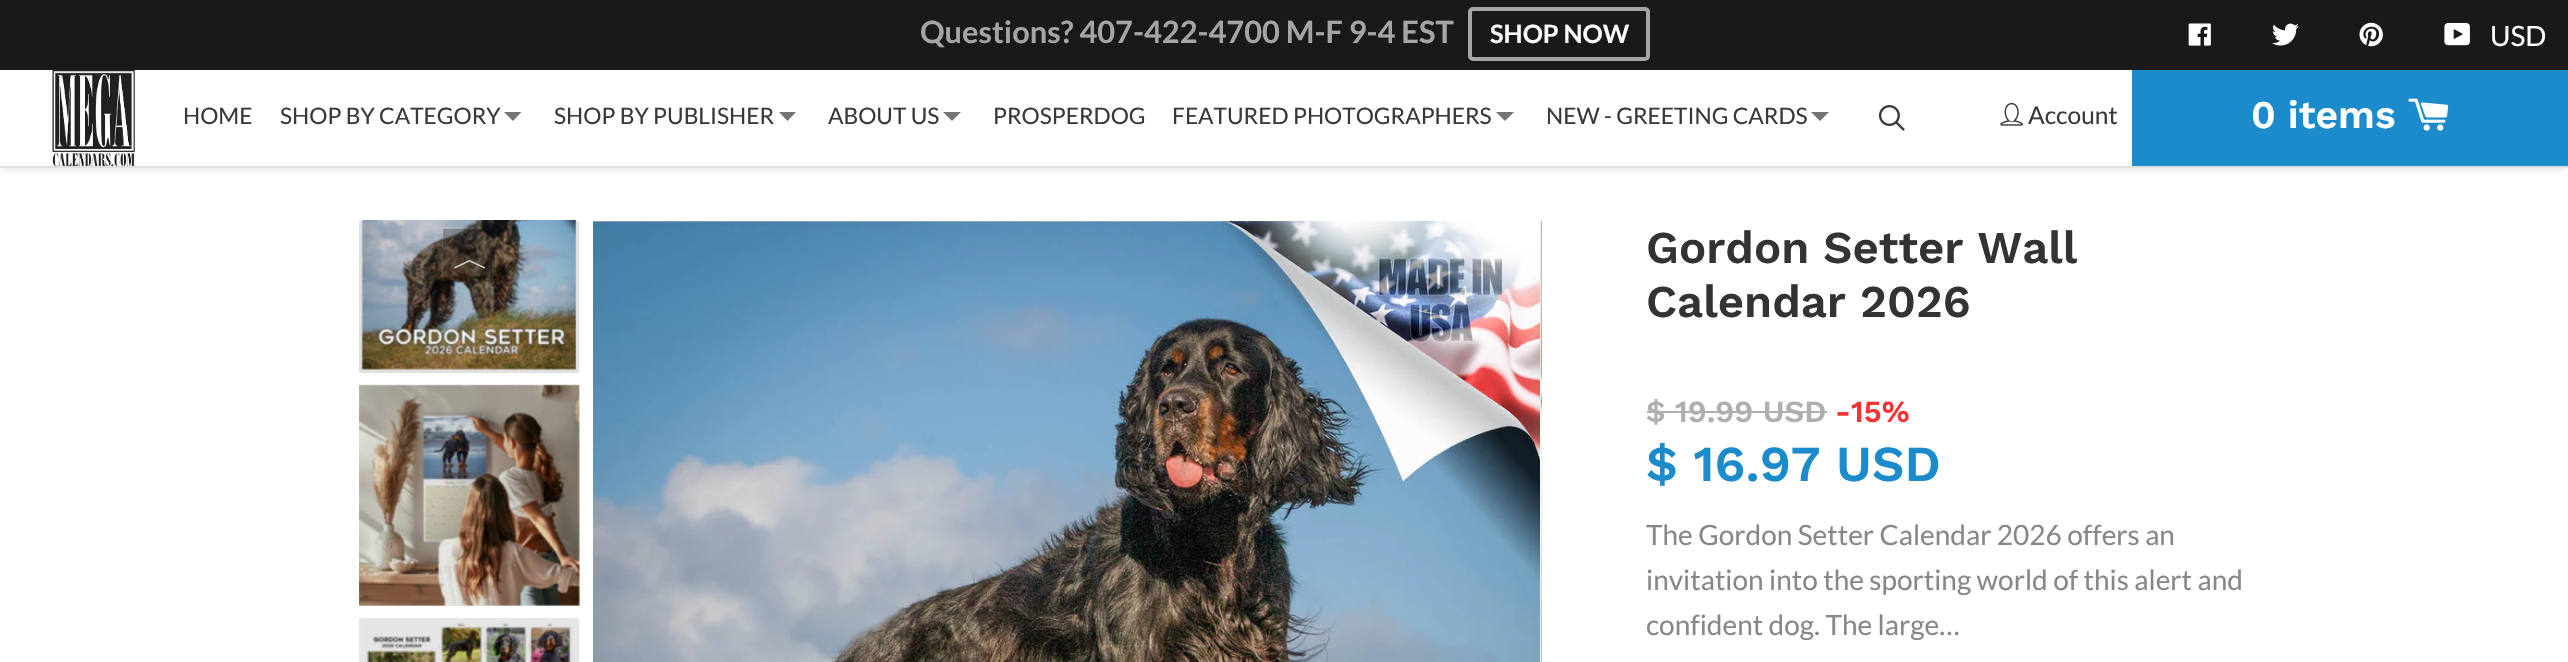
void draw(SkCanvas* canvas) {
  SkPaint paint;
  paint.setAntiAlias(true);
  auto face = [&](const char* family, int weight, float size, bool italic = false) {
    SkFontStyle style(weight, SkFontStyle::kNormal_Width,
      italic ? SkFontStyle::kItalic_Slant : SkFontStyle::kUpright_Slant);
    SkFont result(fontMgr->matchFamilyStyle(family, style), size);
    result.setSubpixel(true);
    return result;
  };
  auto paste = [&](const char* path, float x, float y, float w, float h) {
    auto image = SkImages::DeferredFromEncodedData(SkData::MakeFromFileName(path));
    canvas->drawImageRect(image, SkRect::MakeXYWH(x, y, w, h), SkSamplingOptions());
  };
  auto shape = [&](const char* data, bool evenOdd = false) {
    SkPath result = *SkParsePath::FromSVGString(data);
    if (evenOdd) result.setFillType(SkPathFillType::kEvenOdd);
    return result;
  };
  canvas->clear(0xffffffff);
  {
    const struct { float x, y, w, h; SkColor color; } items[] = {
      {359, 618, 220, 44, 0xffe6e6e6},
      {359, 385, 220, 221, 0xffe6e6e6},
      {0, 166, 2568, 2, 0xffe0e0e0},
    };
    for (auto [x, y, w, h, color] : items) {
      paint.setColor(color);
      canvas->drawRect(SkRect::MakeXYWH(x, y, w, h), paint);
    }
  }
  canvas->save();
  canvas->clipRect(SkRect::MakeXYWH(357, 221, 224, 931));
  paint.setStroke(true);
  paint.setStrokeWidth(4);
  canvas->drawRect(SkRect::MakeXYWH(361, 154, 216, 217), paint);
  canvas->restore();
  canvas->save();
  canvas->clipRect(SkRect::MakeXYWH(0, 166, 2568, 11));
  paint.setStroke(false);
  paint.setMaskFilter(SkMaskFilter::MakeBlur(kNormal_SkBlurStyle, 4.5f));
  canvas->drawRect(SkRect::MakeXYWH(0, 72, 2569, 96), paint);
  paint.setMaskFilter(nullptr);
  canvas->restore();
  paint.setColor(0xff191919);
  canvas->drawRect(SkRect::MakeXYWH(0, 0, 2568, 70), paint);
  paint.setStroke(true);
  paint.setColor(0xffa5a5a5);
  canvas->drawRoundRect(SkRect::MakeXYWH(1470, 9, 178, 50), 3, 3, paint);
  paste("img/1.png", 2188, 23, 23, 23);
  paste("img/2.png", 2272, 23, 27, 23);
  paste("img/3.png", 2359, 22, 24, 25);
  paste("img/4.png", 2444, 23, 26, 23);
  paste("img/5.png", 52, 70, 83, 97);
  paint.setStroke(false);
  paint.setColor(0xff747474);
  canvas->drawPath(shape("M504 112H521.5L513 121Z"), paint);
  canvas->drawPath(shape("M779 112H796L787.5 121Z"), paint);
  canvas->drawPath(shape("M943 112H961L952 121Z"), paint);
  canvas->drawPath(shape("M1496 112H1514L1505 121Z"), paint);
  canvas->drawPath(shape("M1811 112H1829L1820 121Z"), paint);
  paste("img/6.png", 1878, 105, 27, 26);
  paste("img/7.png", 2000, 102, 23, 24);
  paint.setColor(0xff1b8bcc);
  canvas->drawRect(SkRect::MakeXYWH(2132, 70, 436, 96), paint);
  paste("img/8.png", 2408, 98, 41, 33);
  paste("img/9.png", 361, 220, 215, 150);
  paste("img/10.png", 359, 384, 221, 222);
  paste("img/11.png", 365, 622, 209, 40);
  paint.setColor(0x40000000);
  canvas->drawRect(SkRect::MakeXYWH(443, 229, 52, 53), paint);
  paste("img/12.png", 593, 221, 947, 441);
  paste("img/13.png", 1540, 221, 2, 441);
  paint.setColor(0xffafafaf);
  canvas->drawRect(SkRect::MakeXYWH(1647, 411, 180, 2), paint);
  auto f0 = face("Lato", 700, 30.75f);
  paint.setColor(0xffa5a5a5);
  canvas->drawString("Questions? 407-422-4700 M-F 9-4 EST", 920, 43, f0, paint);
  auto f1 = face("Lato", 700, 25.25f);
  paint.setColor(0xffffffff);
  canvas->drawString("SHOP NOW", 1490, 43, f1, paint);
  auto f2 = face("Lato", 400, 28);
  canvas->drawString("USD", 2490, 46, f2, paint);
  auto f3 = face("Lato", 400, 22.75f);
  paint.setColor(0xff393939);
  {
    const struct { const char* s; float x, y; } items[] = {
      {"HOME", 183, 124},
      {"SHOP BY CATEGORY", 280, 124},
      {"SHOP BY PUBLISHER", 554, 124},
      {"ABOUT US", 828, 124},
      {"PROSPERDOG", 993, 124},
      {"FEATURED PHOTOGRAPHERS", 1172, 124},
      {"NEW - GREETING CARDS", 1546, 124},
    };
    for (auto [s, x, y] : items) {
      canvas->drawString(s, x, y, f3, paint);
    }
  }
  auto f4 = face("Lato", 400, 24.5f);
  canvas->drawString("Account", 2028, 124, f4, paint);
  auto f5 = face("Work Sans", 600, 39);
  paint.setColor(0xffffffff);
  canvas->drawString("0 items", 2251, 128, f5, paint);
  auto f6 = face("WenQuanYi Zen Hei", 500, 35);
  paint.setColor(0xffd2cfcb);
  canvas->save();
  canvas->rotate(90, 457, 238);
  canvas->drawString("〈", 457, 238, f6, paint);
  canvas->restore();
  auto f7 = face("Work Sans", 600, 45.5f);
  paint.setColor(0xff333333);
  canvas->drawString("Gordon Setter Wall", 1646, 263, f7, paint);
  canvas->drawString("Calendar 2026", 1646, 317, f7, paint);
  auto f8 = face("Work Sans", 600, 30.75f);
  paint.setColor(0xffafafaf);
  canvas->drawString("$ 19.99 USD", 1646, 422, f8, paint);
  paint.setColor(0xfff53333);
  canvas->drawString("-15%", 1835, 422, f8, paint);
  auto f9 = face("Work Sans", 600, 50.5f);
  paint.setColor(0xff1b8bcc);
  canvas->drawString("$ 16.97 USD", 1646, 481, f9, paint);
  paint.setColor(0xff878787);
  {
    const struct { const char* s; float x, y; } items[] = {
      {"The Gordon Setter Calendar 2026 offers an", 1646, 545},
      {"invitation into the sporting world of this alert and", 1646, 590},
      {"confident dog. The large…", 1646, 635},
    };
    for (auto [s, x, y] : items) {
      canvas->drawString(s, x, y, f2, paint);
    }
  }
}
